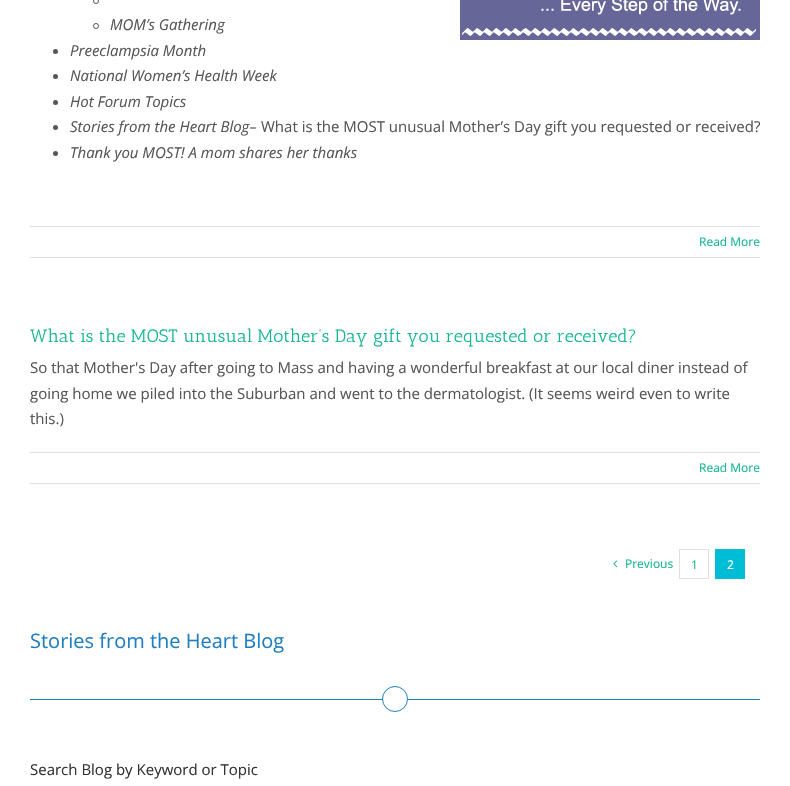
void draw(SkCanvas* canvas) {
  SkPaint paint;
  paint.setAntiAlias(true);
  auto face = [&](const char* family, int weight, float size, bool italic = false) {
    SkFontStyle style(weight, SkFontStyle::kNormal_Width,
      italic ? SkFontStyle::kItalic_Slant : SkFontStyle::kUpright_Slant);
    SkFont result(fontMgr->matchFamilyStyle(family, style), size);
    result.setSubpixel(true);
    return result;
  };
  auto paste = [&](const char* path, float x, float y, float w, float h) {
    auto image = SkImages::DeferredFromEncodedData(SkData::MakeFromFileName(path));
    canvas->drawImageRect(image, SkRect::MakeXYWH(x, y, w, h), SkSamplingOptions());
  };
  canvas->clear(0xffffffff);
  paste("img/1.png", 460, 0, 300, 40);
  paint.setStroke(true);
  paint.setStrokeWidth(1);
  paint.setColor(0xff565656);
  canvas->drawCircle(96, 1, 2.5f, paint);
  canvas->drawCircle(96, 26, 2.5f, paint);
  paint.setStroke(false);
  canvas->drawCircle(55.5f, 51.5f, 2.5f, paint);
  canvas->drawCircle(55.5f, 76.5f, 2.5f, paint);
  canvas->drawCircle(55.5f, 102.5f, 2.5f, paint);
  canvas->drawCircle(55.5f, 127.5f, 2.5f, paint);
  canvas->drawCircle(55.5f, 153.5f, 2.5f, paint);
  {
    const struct { float x, y, w, h; SkColor color; } items[] = {
      {30, 226, 730, 1, 0xffe0dede},
      {30, 257, 730, 1, 0xffe0dede},
      {30, 452, 730, 1, 0xffe0dede},
      {30, 483, 730, 1, 0xffe0dede},
    };
    for (auto [x, y, w, h, color] : items) {
      paint.setColor(color);
      canvas->drawRect(SkRect::MakeXYWH(x, y, w, h), paint);
    }
  }
  paste("img/2.png", 613, 560, 5, 7);
  paint.setStroke(true);
  canvas->drawRect(SkRect::MakeXYWH(679.5f, 549.5f, 29, 29), paint);
  paint.setStroke(false);
  paint.setColor(0xff00bcd4);
  canvas->drawRect(SkRect::MakeXYWH(715, 549, 30, 30), paint);
  paint.setColor(0xff207fbf);
  canvas->drawRect(SkRect::MakeXYWH(30, 699, 352, 1), paint);
  paint.setStroke(true);
  canvas->drawCircle(395, 699, 12.5f, paint);
  paint.setStroke(false);
  canvas->drawRect(SkRect::MakeXYWH(408, 699, 352, 1), paint);
  auto f0 = face("Open Sans", 400, 15, true);
  paint.setColor(0xff565656);
  {
    const struct { const char* s; float x, y; } items[] = {
      {"MOM’s Gathering", 110, 30},
      {"Preeclampsia Month", 70, 56},
      {"National Women’s Health Week", 70, 81},
      {"Hot Forum Topics", 70, 107},
      {"Stories from the Heart Blog–", 70, 132},
    };
    for (auto [s, x, y] : items) {
      canvas->drawString(s, x, y, f0, paint);
    }
  }
  auto f1 = face("Open Sans", 400, 15);
  canvas->drawString("What is the MOST unusual Mother’s Day gift you requested or received?", 261, 132, f1, paint);
  canvas->drawString("Thank you MOST! A mom shares her thanks", 70, 158, f0, paint);
  auto f2 = face("Open Sans", 400, 12);
  paint.setColor(0xff11b694);
  canvas->drawString("Read More", 699, 246, f2, paint);
  auto f3 = face("Antic Slab", 400, 18);
  canvas->drawString("What is the MOST unusual Mother’s Day gift you requested or received?", 30, 342, f3, paint);
  paint.setColor(0xff565656);
  {
    const struct { const char* s; float x, y; } items[] = {
      {"So that Mother's Day after going to Mass and having a wonderful breakfast at our local diner instead of", 30, 373},
      {"going home we piled into the Suburban and went to the dermatologist. (It seems weird even to write", 30, 399},
      {"this.)", 30, 424},
    };
    for (auto [s, x, y] : items) {
      canvas->drawString(s, x, y, f1, paint);
    }
  }
  paint.setColor(0xff11b694);
  {
    const struct { const char* s; float x, y; } items[] = {
      {"Read More", 699, 472},
      {"Previous", 625, 568},
      {"1", 691, 569},
    };
    for (auto [s, x, y] : items) {
      canvas->drawString(s, x, y, f2, paint);
    }
  }
  paint.setColor(0xffffffff);
  canvas->drawString("2", 727, 569, f2, paint);
  auto f4 = face("Open Sans", 400, 20);
  paint.setColor(0xff207fbf);
  canvas->drawString("Stories from the Heart Blog", 30, 648, f4, paint);
  paint.setColor(0xff333333);
  canvas->drawString("Search Blog by Keyword or Topic", 30, 775, f1, paint);
}
